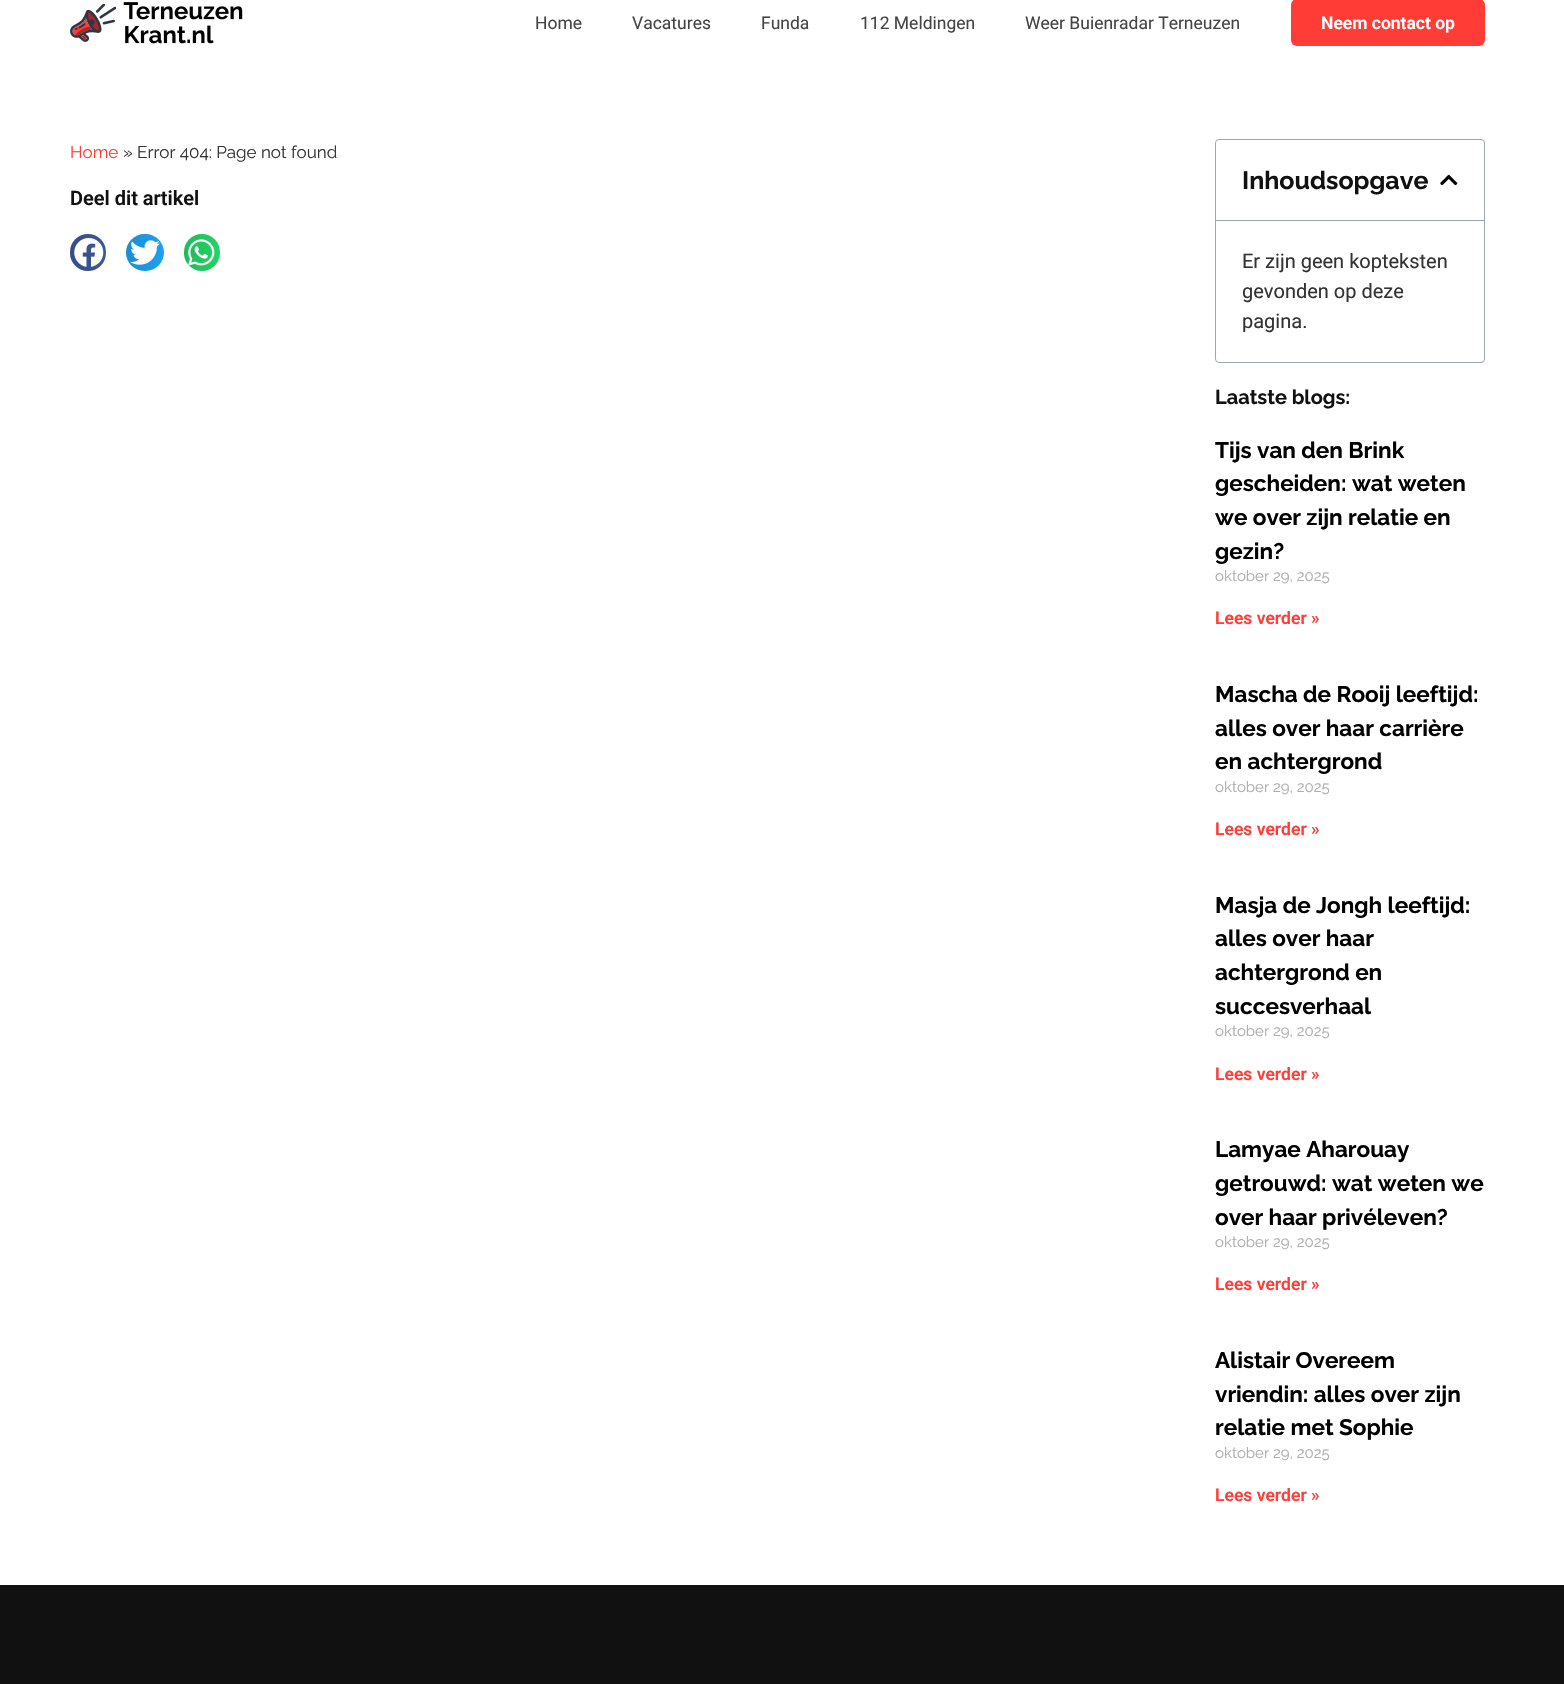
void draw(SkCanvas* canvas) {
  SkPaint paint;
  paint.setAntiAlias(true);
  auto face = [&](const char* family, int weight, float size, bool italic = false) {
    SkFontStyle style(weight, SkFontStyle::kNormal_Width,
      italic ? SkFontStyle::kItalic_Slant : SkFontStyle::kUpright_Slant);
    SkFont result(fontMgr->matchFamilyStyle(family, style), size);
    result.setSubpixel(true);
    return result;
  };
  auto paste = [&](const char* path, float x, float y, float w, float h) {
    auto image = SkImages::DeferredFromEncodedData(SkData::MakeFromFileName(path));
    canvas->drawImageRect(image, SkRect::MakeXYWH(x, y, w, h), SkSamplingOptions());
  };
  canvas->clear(0xffffffff);
  paste("img/1.png", 70, 2, 173, 42);
  paint.setColor(0xffff3c36);
  canvas->drawRoundRect(SkRect::MakeXYWH(1291, -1, 194, 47), 6, 6, paint);
  paint.setColor(0xff3b5998);
  canvas->drawRoundRect(SkRect::MakeXYWH(70, 234, 36, 37), 18, 18, paint);
  {
    const SkColor colors[] = {0x1f000000, 0x00000000};
    const float stops[] = {0, 1};
    const SkPoint ends[] = {{70, 253}, {106, 253}};
    paint.setShader(SkGradientShader::MakeLinear(ends, colors, stops, 2, SkTileMode::kClamp));
    paint.setAlpha(255);
  }
  canvas->drawRoundRect(SkRect::MakeXYWH(70, 234, 36, 37), 18, 18, paint);
  paste("img/2.png", 74, 238, 30, 29);
  paint.setShader(nullptr);
  paint.setColor(0xff1da1f2);
  canvas->drawRoundRect(SkRect::MakeXYWH(126, 234, 38, 37), 18.5f, 18.5f, paint);
  {
    const SkColor colors[] = {0x1f000000, 0x00000000};
    const float stops[] = {0, 1};
    const SkPoint ends[] = {{126, 253}, {164, 253}};
    paint.setShader(SkGradientShader::MakeLinear(ends, colors, stops, 2, SkTileMode::kClamp));
    paint.setAlpha(255);
  }
  canvas->drawRoundRect(SkRect::MakeXYWH(126, 234, 38, 37), 18.5f, 18.5f, paint);
  paste("img/3.png", 130, 240, 30, 25);
  paint.setShader(nullptr);
  paint.setColor(0xff25d366);
  canvas->drawRoundRect(SkRect::MakeXYWH(184, 234, 36, 37), 18, 18, paint);
  {
    const SkColor colors[] = {0x1f000000, 0x00000000};
    const float stops[] = {0, 1};
    const SkPoint ends[] = {{184, 253}, {220, 253}};
    paint.setShader(SkGradientShader::MakeLinear(ends, colors, stops, 2, SkTileMode::kClamp));
    paint.setAlpha(255);
  }
  canvas->drawRoundRect(SkRect::MakeXYWH(184, 234, 36, 37), 18, 18, paint);
  paste("img/4.png", 188, 239, 27, 27);
  paint.setStroke(true);
  paint.setStrokeWidth(1);
  paint.setShader(nullptr);
  paint.setColor(0xff9da5ae);
  canvas->drawRoundRect(SkRect::MakeXYWH(1215.5f, 139.5f, 269, 223), 3.5f, 3.5f, paint);
  paint.setStroke(false);
  canvas->drawRect(SkRect::MakeXYWH(1216, 220, 268, 1), paint);
  paste("img/5.png", 1440, 174, 18, 12);
  paint.setColor(0xff111111);
  canvas->drawRect(SkRect::MakeXYWH(0, 1585, 1564, 99), paint);
  auto f0 = face("Roboto", 400, 17.5f);
  paint.setColor(0xff444444);
  {
    const struct { const char* s; float x, y; } items[] = {
      {"Home", 535, 29},
      {"Vacatures", 632, 29},
      {"Funda", 761, 29},
      {"112 Meldingen", 860, 29},
      {"Weer Buienradar Terneuzen", 1025, 29},
    };
    for (auto [s, x, y] : items) {
      canvas->drawString(s, x, y, f0, paint);
    }
  }
  auto f1 = face("Roboto", 600, 17.5f);
  paint.setColor(0xffffffff);
  canvas->drawString("Neem contact op", 1321, 29, f1, paint);
  auto f2 = face("Raleway", 400, 17);
  paint.setColor(0xffff3c36);
  canvas->drawString("Home", 70, 158, f2, paint);
  paint.setColor(0xff333333);
  canvas->drawString("» Error 404: Page not found", 123, 158, f2, paint);
  auto f3 = face("Roboto", 600, 20);
  paint.setColor(0xff111111);
  canvas->drawString("Deel dit artikel", 70, 205, f3, paint);
  auto f4 = face("Raleway", 700, 25);
  canvas->drawString("Inhoudsopgave", 1242, 189, f4, paint);
  auto f5 = face("Roboto", 400, 20);
  paint.setColor(0xff333333);
  {
    const struct { const char* s; float x, y; } items[] = {
      {"Er zijn geen kopteksten", 1242, 268},
      {"gevonden op deze", 1242, 298},
      {"pagina.", 1242, 328},
    };
    for (auto [s, x, y] : items) {
      canvas->drawString(s, x, y, f5, paint);
    }
  }
  auto f6 = face("Raleway", 700, 20);
  paint.setColor(0xff111111);
  canvas->drawString("Laatste blogs:", 1215, 404, f6, paint);
  auto f7 = face("Raleway", 700, 22.5f);
  paint.setColor(0xff000000);
  {
    const struct { const char* s; float x, y; } items[] = {
      {"Tijs van den Brink", 1215, 458},
      {"gescheiden: wat weten", 1215, 491},
      {"we over zijn relatie en", 1215, 525},
      {"gezin?", 1215, 559},
    };
    for (auto [s, x, y] : items) {
      canvas->drawString(s, x, y, f7, paint);
    }
  }
  auto f8 = face("Raleway", 400, 15);
  paint.setColor(0xffadadad);
  canvas->drawString("oktober 29, 2025", 1215, 581, f8, paint);
  paint.setColor(0xffff3c36);
  canvas->drawString("Lees verder »", 1215, 624, f1, paint);
  paint.setColor(0xff000000);
  {
    const struct { const char* s; float x, y; } items[] = {
      {"Mascha de Rooij leeftijd:", 1215, 702},
      {"alles over haar carrière", 1215, 736},
      {"en achtergrond", 1215, 769},
    };
    for (auto [s, x, y] : items) {
      canvas->drawString(s, x, y, f7, paint);
    }
  }
  paint.setColor(0xffadadad);
  canvas->drawString("oktober 29, 2025", 1215, 792, f8, paint);
  paint.setColor(0xffff3c36);
  canvas->drawString("Lees verder »", 1215, 835, f1, paint);
  paint.setColor(0xff000000);
  {
    const struct { const char* s; float x, y; } items[] = {
      {"Masja de Jongh leeftijd:", 1215, 913},
      {"alles over haar", 1215, 946},
      {"achtergrond en", 1215, 980},
      {"succesverhaal", 1215, 1014},
    };
    for (auto [s, x, y] : items) {
      canvas->drawString(s, x, y, f7, paint);
    }
  }
  paint.setColor(0xffadadad);
  canvas->drawString("oktober 29, 2025", 1215, 1036, f8, paint);
  paint.setColor(0xffff3c36);
  canvas->drawString("Lees verder »", 1215, 1080, f1, paint);
  paint.setColor(0xff000000);
  {
    const struct { const char* s; float x, y; } items[] = {
      {"Lamyae Aharouay", 1215, 1157},
      {"getrouwd: wat weten we", 1215, 1191},
      {"over haar privéleven?", 1215, 1225},
    };
    for (auto [s, x, y] : items) {
      canvas->drawString(s, x, y, f7, paint);
    }
  }
  paint.setColor(0xffadadad);
  canvas->drawString("oktober 29, 2025", 1215, 1247, f8, paint);
  paint.setColor(0xffff3c36);
  canvas->drawString("Lees verder »", 1215, 1290, f1, paint);
  paint.setColor(0xff000000);
  {
    const struct { const char* s; float x, y; } items[] = {
      {"Alistair Overeem", 1215, 1368},
      {"vriendin: alles over zijn", 1215, 1402},
      {"relatie met Sophie", 1215, 1435},
    };
    for (auto [s, x, y] : items) {
      canvas->drawString(s, x, y, f7, paint);
    }
  }
  paint.setColor(0xffadadad);
  canvas->drawString("oktober 29, 2025", 1215, 1458, f8, paint);
  paint.setColor(0xffff3c36);
  canvas->drawString("Lees verder »", 1215, 1501, f1, paint);
}
